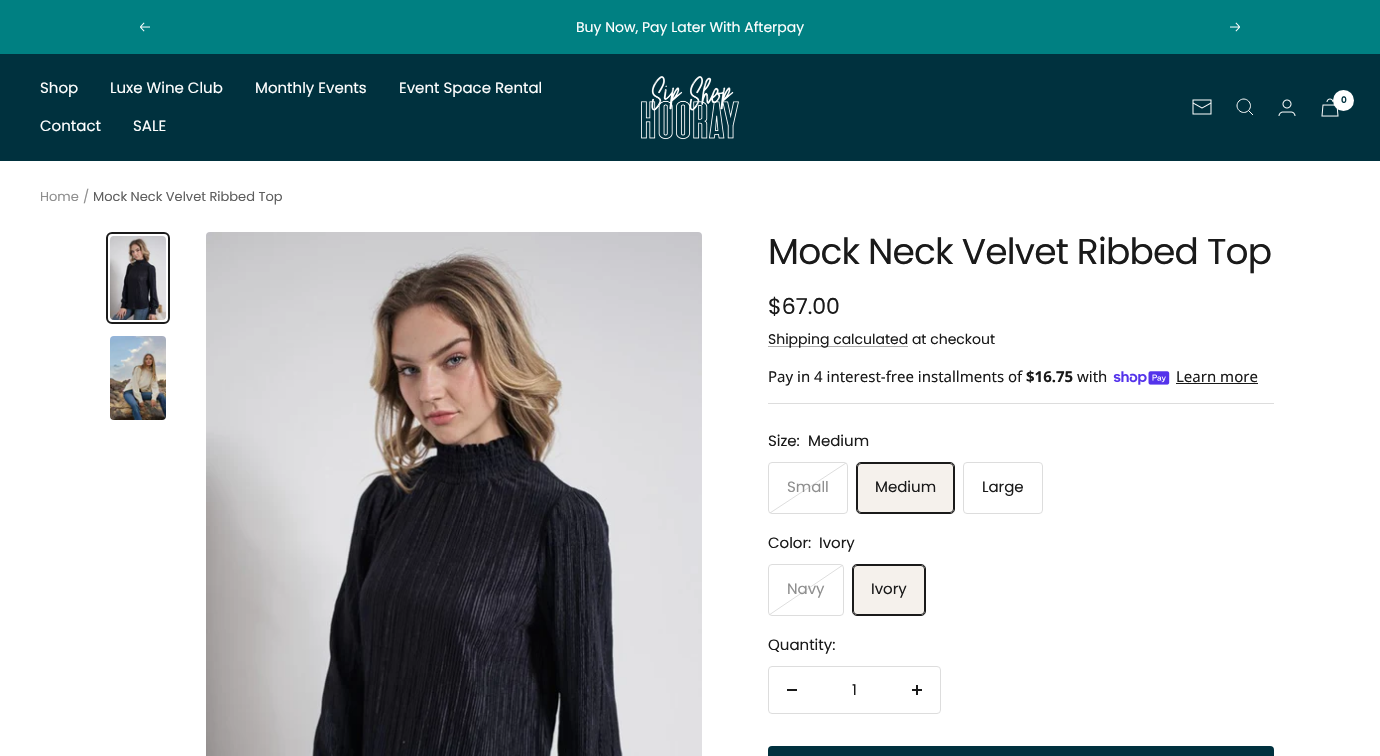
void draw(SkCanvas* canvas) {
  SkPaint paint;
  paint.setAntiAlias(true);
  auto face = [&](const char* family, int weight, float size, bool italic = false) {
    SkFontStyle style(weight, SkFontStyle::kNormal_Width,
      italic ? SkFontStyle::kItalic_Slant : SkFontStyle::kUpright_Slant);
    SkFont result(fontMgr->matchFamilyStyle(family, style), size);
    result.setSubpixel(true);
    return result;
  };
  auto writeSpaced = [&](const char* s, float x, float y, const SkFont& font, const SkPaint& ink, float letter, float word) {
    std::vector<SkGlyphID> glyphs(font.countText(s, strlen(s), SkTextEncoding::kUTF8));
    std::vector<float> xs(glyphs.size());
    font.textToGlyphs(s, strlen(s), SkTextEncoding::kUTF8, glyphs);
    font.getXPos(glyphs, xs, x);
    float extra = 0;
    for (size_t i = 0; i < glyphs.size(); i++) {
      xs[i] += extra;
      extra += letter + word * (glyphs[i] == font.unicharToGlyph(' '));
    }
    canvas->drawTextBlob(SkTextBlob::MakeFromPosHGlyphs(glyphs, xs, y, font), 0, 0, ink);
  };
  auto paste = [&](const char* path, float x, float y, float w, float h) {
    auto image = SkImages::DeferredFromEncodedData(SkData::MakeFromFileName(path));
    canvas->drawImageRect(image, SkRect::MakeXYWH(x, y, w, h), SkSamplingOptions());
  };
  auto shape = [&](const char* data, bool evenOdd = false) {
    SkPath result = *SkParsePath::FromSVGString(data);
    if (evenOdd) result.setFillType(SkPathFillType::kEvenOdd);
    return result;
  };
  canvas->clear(0xffffffff);
  paint.setColor(0xff008082);
  canvas->drawRect(SkRect::MakeXYWH(0, 0, 1380, 54), paint);
  paste("img/1.png", 140, 22, 10, 10);
  paste("img/2.png", 1230, 22, 10, 10);
  paint.setColor(0xff00313e);
  canvas->drawRect(SkRect::MakeXYWH(0, 54, 1380, 107), paint);
  paste("img/3.png", 641, 76, 98, 64);
  paste("img/4.png", 1192, 99, 20, 16);
  paint.setStroke(true);
  paint.setStrokeWidth(1);
  paint.setColor(0xffffffff);
  canvas->drawPath(shape("M1248.5 110.5C1254.5 104 1245.5 95 1239 101C1233 107.5 1242 116.5 1248.5 110.5ZM1248.5 110.5L1253 115"), paint);
  paste("img/5.png", 1278, 99, 18, 17);
  paste("img/6.png", 1321, 98, 18, 19);
  paint.setStroke(false);
  canvas->drawCircle(1343.5f, 100.5f, 10.5f, paint);
  paste("img/7.png", 110, 236, 56, 84);
  paint.setStroke(true);
  paint.setStrokeWidth(2);
  paint.setColor(0xff1a1a1a);
  canvas->drawRoundRect(SkRect::MakeXYWH(107, 233, 62, 90), 5, 5, paint);
  paste("img/8.png", 110, 336, 56, 84);
  paste("img/9.png", 206, 232, 496, 524);
  paint.setStroke(false);
  paint.setColor(0xffdddddd);
  canvas->drawRect(SkRect::MakeXYWH(768, 403, 506, 1), paint);
  paint.setColor(0xffafafaf);
  canvas->drawRect(SkRect::MakeXYWH(768, 346, 140, 1), paint);
  paste("img/10.png", 1113, 371, 57, 14);
  paint.setColor(0xff1a1a1a);
  canvas->drawRect(SkRect::MakeXYWH(1176, 383, 82, 1), paint);
  canvas->save();
  canvas->clipPath(shape("M772 462H844C846 462 848 464 848 466V510C848 512 846 514 844 514H772C770 514 768 512 768 510V466C768 464 770 462 772 462Z"), true);
  {
    const SkColor colors[] = {0xffffffff, 0xffdddddd, 0xffffffff};
    const float stops[] = {0.49f, 0.5f, 0.51f};
    const SkPoint ends[] = {{785, 453}, {831, 523}};
    paint.setShader(SkGradientShader::MakeLinear(ends, colors, stops, 3, SkTileMode::kClamp));
    paint.setAlpha(255);
  }
  canvas->drawRect(SkRect::MakeXYWH(769, 463, 78, 50), paint);
  canvas->restore();
  paint.setStroke(true);
  paint.setStrokeWidth(1);
  paint.setShader(nullptr);
  paint.setColor(0xffdddddd);
  canvas->drawRoundRect(SkRect::MakeXYWH(768.5f, 462.5f, 79, 51), 3.5f, 3.5f, paint);
  paint.setStroke(false);
  paint.setColor(0xfff5f1ec);
  canvas->drawRoundRect(SkRect::MakeXYWH(856.5f, 462.5f, 98, 51), 3.5f, 3.5f, paint);
  paint.setStroke(true);
  paint.setColor(0xffdddddd);
  canvas->drawRoundRect(SkRect::MakeXYWH(856.5f, 462.5f, 98, 51), 3.5f, 3.5f, paint);
  paint.setColor(0xff1a1a1a);
  canvas->drawRoundRect(SkRect::MakeXYWH(856.5f, 462.5f, 98, 51), 4.5f, 4.5f, paint);
  canvas->drawRoundRect(SkRect::MakeXYWH(857.5f, 463.5f, 96, 49), 3.5f, 3.5f, paint);
  paint.setColor(0xffdddddd);
  canvas->drawRoundRect(SkRect::MakeXYWH(963.5f, 462.5f, 79, 51), 3.5f, 3.5f, paint);
  canvas->save();
  canvas->clipPath(shape("M772 564H840C842 564 844 566 844 568V612C844 614 842 616 840 616H772C770 616 768 614 768 612V568C768 566 770 564 772 564Z"), true);
  paint.setStroke(false);
  {
    const SkColor colors[] = {0xffffffff, 0xffdddddd, 0xffffffff};
    const float stops[] = {0.49f, 0.5f, 0.51f};
    const SkPoint ends[] = {{783, 556}, {829, 624}};
    paint.setShader(SkGradientShader::MakeLinear(ends, colors, stops, 3, SkTileMode::kClamp));
    paint.setAlpha(255);
  }
  canvas->drawRect(SkRect::MakeXYWH(769, 565, 74, 50), paint);
  canvas->restore();
  paint.setStroke(true);
  paint.setShader(nullptr);
  paint.setColor(0xffdddddd);
  canvas->drawRoundRect(SkRect::MakeXYWH(768.5f, 564.5f, 75, 51), 3.5f, 3.5f, paint);
  paint.setStroke(false);
  paint.setColor(0xfff5f1ec);
  canvas->drawRoundRect(SkRect::MakeXYWH(852.5f, 564.5f, 73, 51), 3.5f, 3.5f, paint);
  paint.setStroke(true);
  paint.setColor(0xffdddddd);
  canvas->drawRoundRect(SkRect::MakeXYWH(852.5f, 564.5f, 73, 51), 3.5f, 3.5f, paint);
  paint.setColor(0xff1a1a1a);
  canvas->drawRoundRect(SkRect::MakeXYWH(852.5f, 564.5f, 73, 51), 4.5f, 4.5f, paint);
  canvas->drawRoundRect(SkRect::MakeXYWH(853.5f, 565.5f, 71, 49), 3.5f, 3.5f, paint);
  paint.setColor(0xffdddddd);
  canvas->drawRoundRect(SkRect::MakeXYWH(768.5f, 666.5f, 172, 47), 3.5f, 3.5f, paint);
  paint.setStroke(false);
  paint.setColor(0xff1a1a1a);
  canvas->drawRect(SkRect::MakeXYWH(787, 689, 10, 2), paint);
  paste("img/11.png", 912, 685, 10, 10);
  paint.setColor(0xff00313e);
  canvas->drawRoundRect(SkRect::MakeXYWH(768, 746, 506, 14), 4, 4, paint);
  auto f0 = face("Poppins", 400, 14);
  paint.setColor(0xffffffff);
  canvas->drawString("Buy Now, Pay Later With Afterpay", 576, 32, f0, paint);
  auto f1 = face("Poppins", 400, 15);
  {
    const struct { const char* s; float x, y; } items[] = {
      {"Shop", 40, 93},
      {"Luxe Wine Club", 110, 93},
      {"Monthly Events", 255, 93},
      {"Event Space Rental", 399, 93},
      {"Contact", 40, 131},
      {"SALE", 133, 131},
    };
    for (auto [s, x, y] : items) {
      canvas->drawString(s, x, y, f1, paint);
    }
  }
  auto f2 = face("Poppins", 600, 9);
  paint.setColor(0xff00313e);
  canvas->drawString("0", 1341, 103, f2, paint);
  auto f3 = face("Poppins", 400, 13);
  paint.setColor(0xff8f8f8f);
  canvas->drawString("Home", 40, 201, f3, paint);
  canvas->drawString("/", 83, 201, f3, paint);
  paint.setColor(0xff5f5f5f);
  canvas->drawString("Mock Neck Velvet Ribbed Top", 93, 201, f3, paint);
  auto f4 = face("Poppins", 400, 36);
  paint.setColor(0xff1a1a1a);
  writeSpaced("Mock Neck Velvet Ribbed Top", 768, 264, f4, paint, -0.8f, 0);
  auto f5 = face("Poppins", 400, 22);
  canvas->drawString("$67.00", 768, 314, f5, paint);
  canvas->drawString("Shipping calculated at checkout", 768, 344, f0, paint);
  auto f6 = face("Noto Sans", 400, 15);
  canvas->drawString("Pay in 4 interest-free installments of", 768, 382, f6, paint);
  auto f7 = face("Noto Sans", 700, 15);
  canvas->drawString("$16.75", 1026, 382, f7, paint);
  canvas->drawString("with", 1077, 382, f6, paint);
  canvas->drawString("Learn more", 1176, 382, f6, paint);
  canvas->drawString("Size:", 768, 446, f1, paint);
  canvas->drawString("Medium", 808, 446, f1, paint);
  paint.setColor(0xff8f8f8f);
  canvas->drawString("Small", 787, 492, f1, paint);
  paint.setColor(0xff1a1a1a);
  {
    const struct { const char* s; float x, y; } items[] = {
      {"Medium", 875, 492},
      {"Large", 982, 492},
      {"Color:", 768, 548},
      {"Ivory", 819, 548},
    };
    for (auto [s, x, y] : items) {
      canvas->drawString(s, x, y, f1, paint);
    }
  }
  paint.setColor(0xff8f8f8f);
  canvas->drawString("Navy", 787, 594, f1, paint);
  paint.setColor(0xff1a1a1a);
  {
    const struct { const char* s; float x, y; } items[] = {
      {"Ivory", 871, 594},
      {"Quantity:", 768, 650},
      {"1", 852, 695},
    };
    for (auto [s, x, y] : items) {
      canvas->drawString(s, x, y, f1, paint);
    }
  }
}
